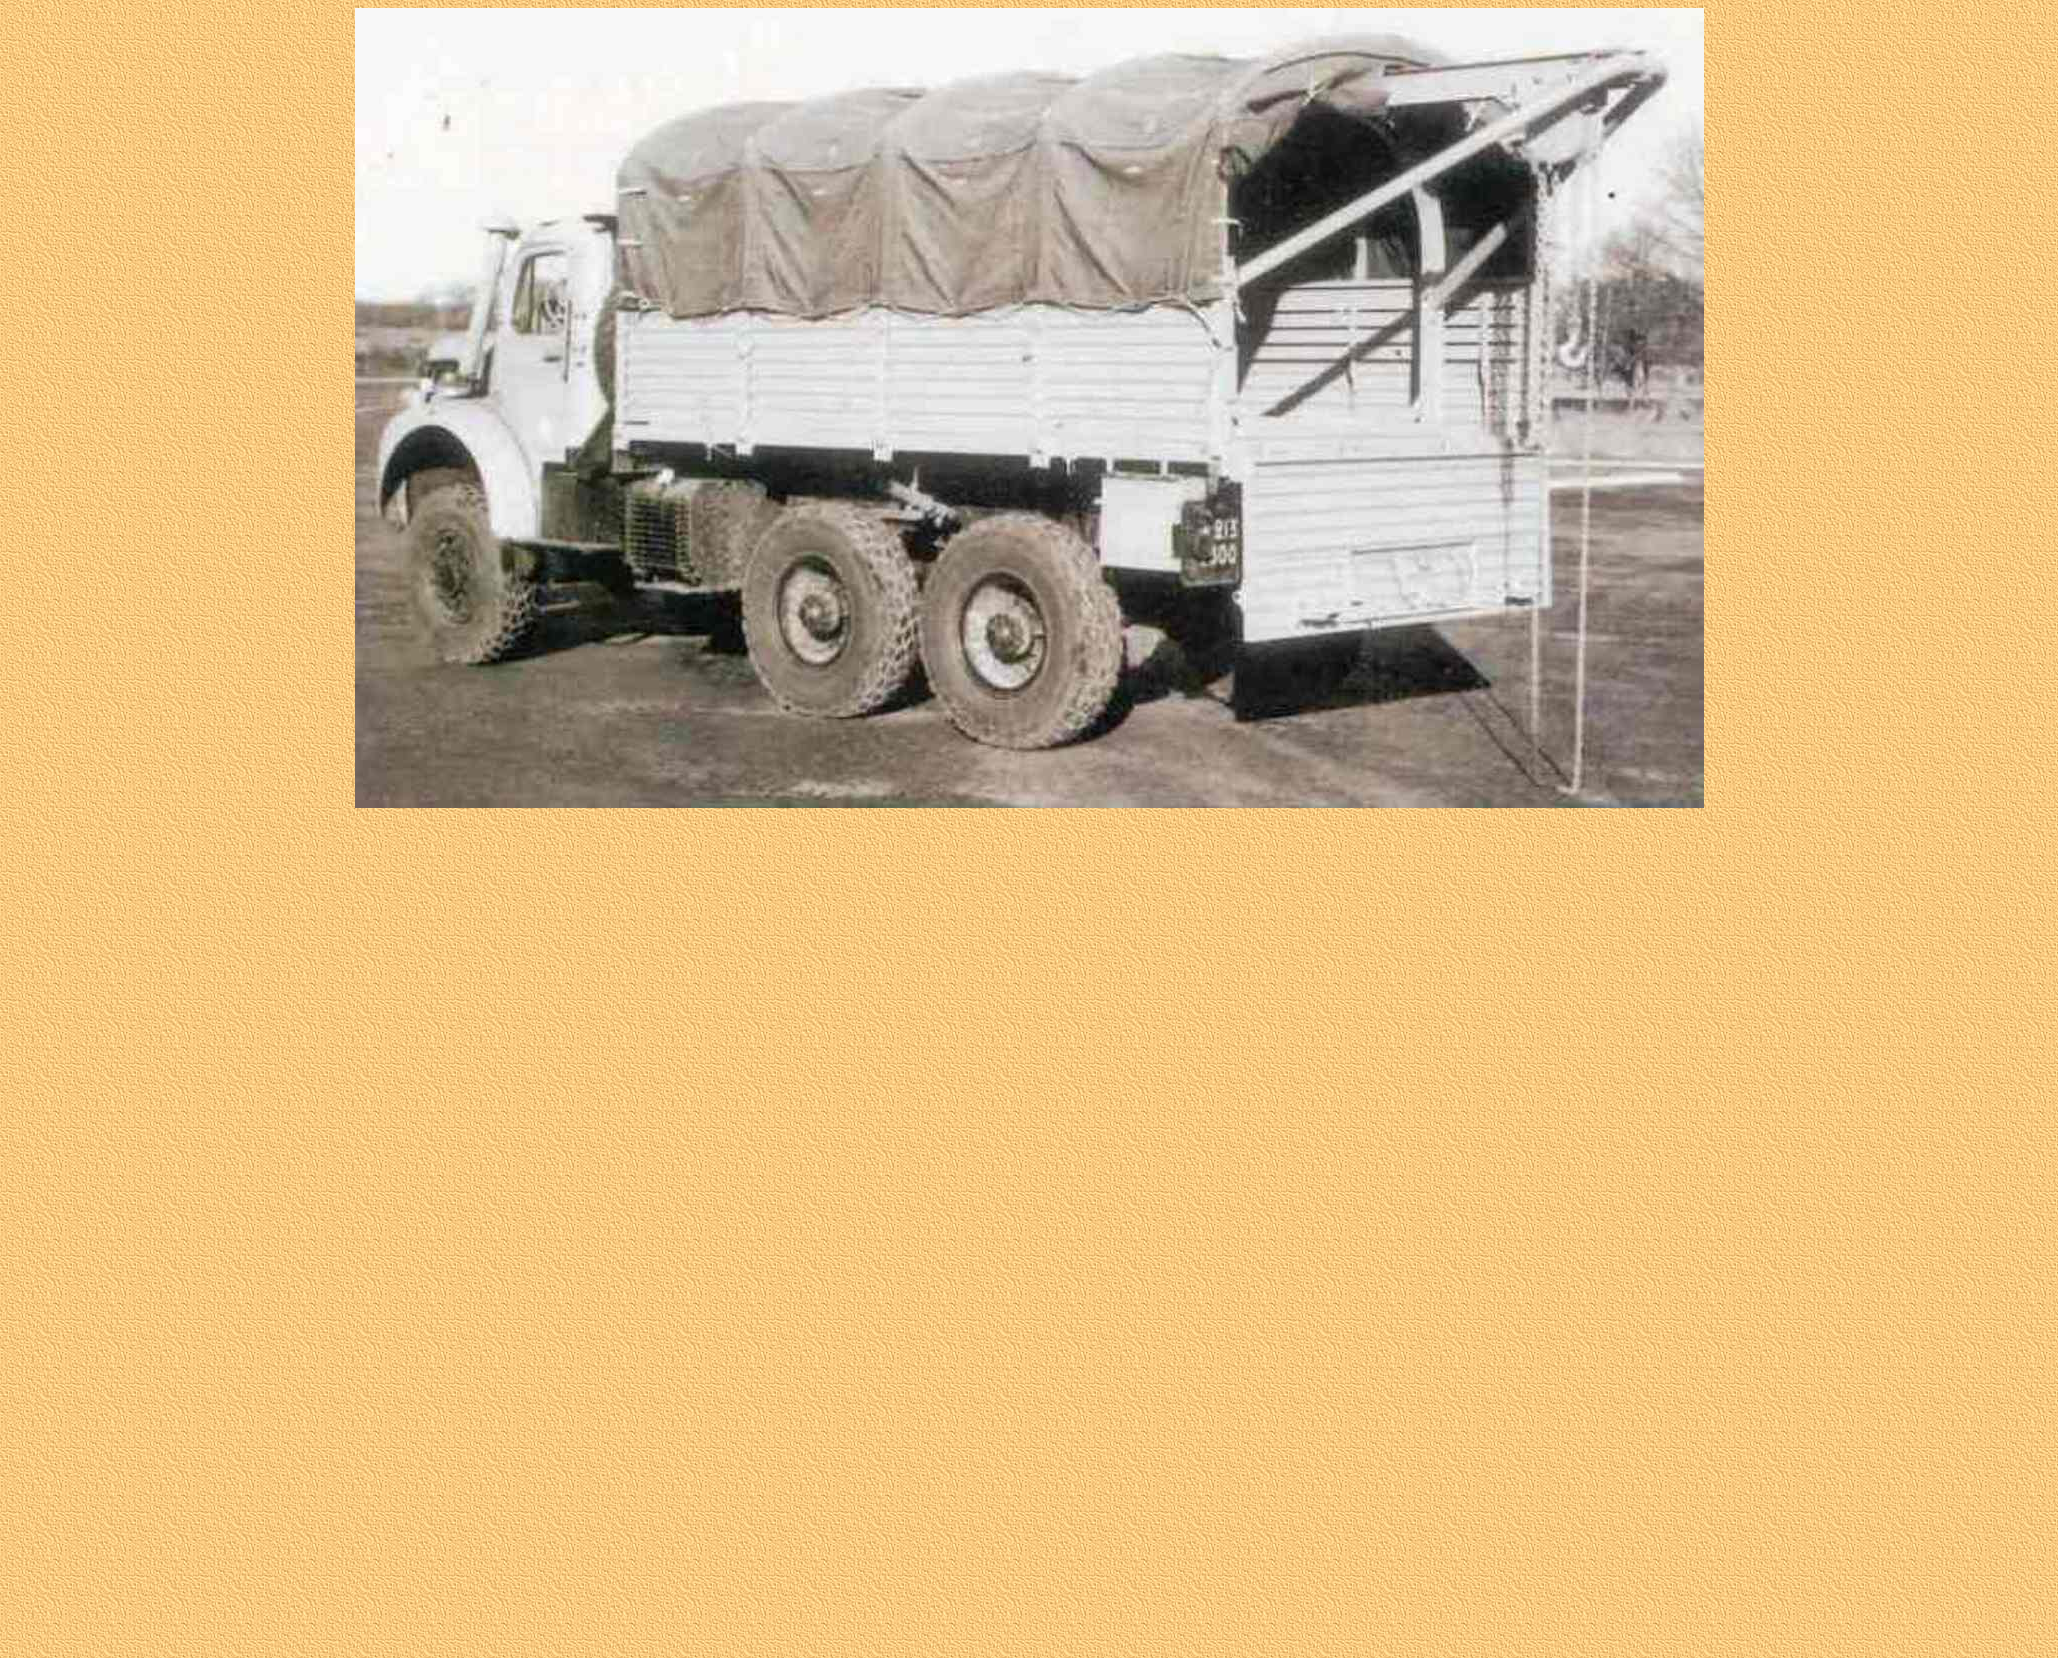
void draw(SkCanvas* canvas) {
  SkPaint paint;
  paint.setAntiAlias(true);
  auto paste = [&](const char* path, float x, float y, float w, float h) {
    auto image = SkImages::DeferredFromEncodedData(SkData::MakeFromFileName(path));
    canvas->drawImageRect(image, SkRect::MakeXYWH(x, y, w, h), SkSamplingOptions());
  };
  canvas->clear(0xffffffff);
  paste("img/1.png", 0, 0, 2058, 1658);
  paste("img/2.png", 355, 8, 1349, 800);
}
